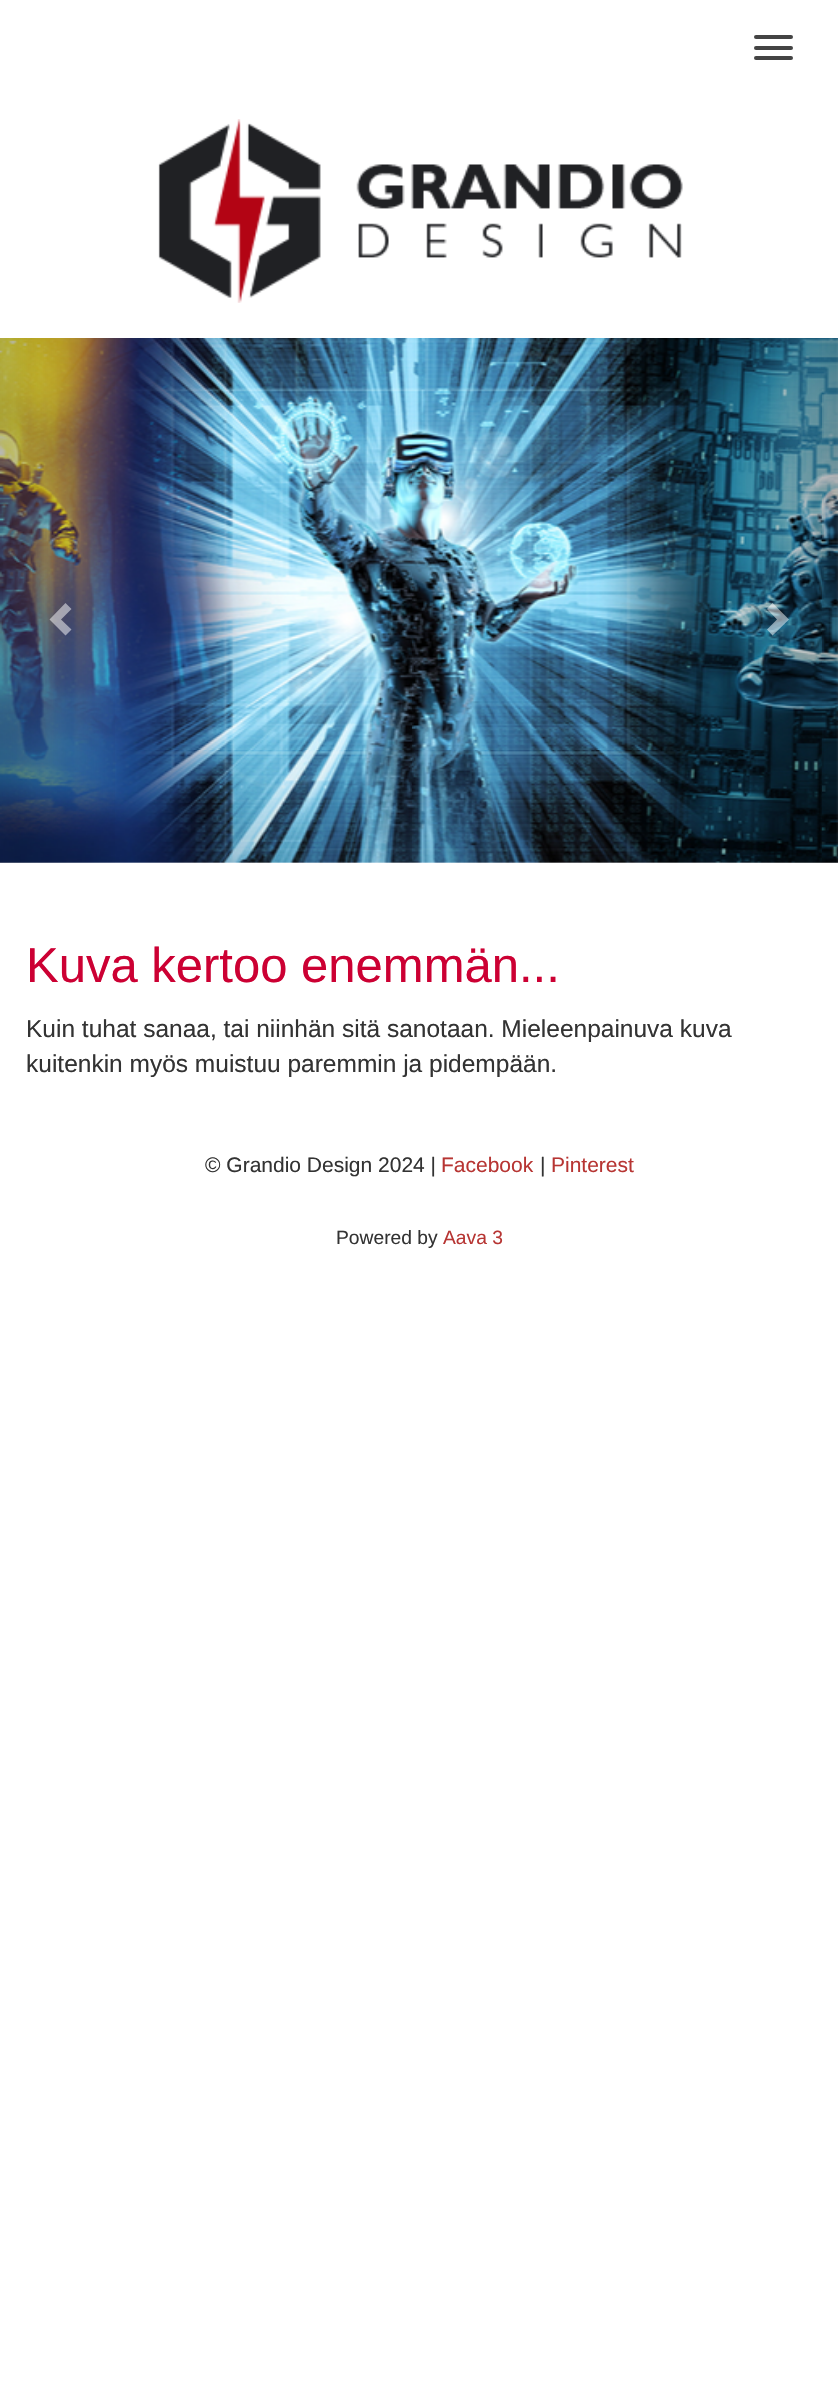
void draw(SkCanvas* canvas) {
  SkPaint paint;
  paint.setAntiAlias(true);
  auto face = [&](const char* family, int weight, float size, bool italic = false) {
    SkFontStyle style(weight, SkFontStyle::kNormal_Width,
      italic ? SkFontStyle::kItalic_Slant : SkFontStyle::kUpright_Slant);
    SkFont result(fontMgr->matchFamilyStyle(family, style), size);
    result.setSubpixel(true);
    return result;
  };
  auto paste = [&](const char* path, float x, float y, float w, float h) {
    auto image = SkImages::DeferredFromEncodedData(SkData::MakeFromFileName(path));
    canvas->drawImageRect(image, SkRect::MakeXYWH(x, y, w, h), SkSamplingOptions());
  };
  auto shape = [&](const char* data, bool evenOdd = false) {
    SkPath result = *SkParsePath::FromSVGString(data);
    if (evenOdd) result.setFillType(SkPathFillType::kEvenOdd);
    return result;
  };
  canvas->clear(0xffffffff);
  paint.setColor(0xff444444);
  canvas->drawRoundRect(SkRect::MakeXYWH(754, 35, 39, 4), 2, 2, paint);
  canvas->drawRoundRect(SkRect::MakeXYWH(754, 46, 39, 4), 2, 2, paint);
  canvas->drawRoundRect(SkRect::MakeXYWH(754, 56, 39, 4), 2, 2, paint);
  paste("img/1.png", 158, 119, 525, 184);
  paste("img/2.png", 0, 338, 838, 525);
  {
    const SkColor colors[] = {0x40000000, 0x00000000};
    const float stops[] = {0, 1};
    const SkPoint ends[] = {{0, 600}, {126, 600}};
    paint.setShader(SkGradientShader::MakeLinear(ends, colors, stops, 2, SkTileMode::kClamp));
    paint.setAlpha(255);
  }
  canvas->drawRect(SkRect::MakeXYWH(0, 338, 115, 525), paint);
  paint.setShader(nullptr);
  paint.setColor(0x80ffffff);
  canvas->drawPath(shape("M71.5 609L61 619.5L71.5 629.5L65.5 635.5L49.5 619.5L65.5 603Z"), paint);
  {
    const SkColor colors[] = {0x00000000, 0x40000000};
    const float stops[] = {0, 1};
    const SkPoint ends[] = {{712, 600}, {838, 600}};
    paint.setShader(SkGradientShader::MakeLinear(ends, colors, stops, 2, SkTileMode::kClamp));
    paint.setAlpha(255);
  }
  canvas->drawRect(SkRect::MakeXYWH(723, 338, 115, 525), paint);
  paint.setShader(nullptr);
  paint.setColor(0x80ffffff);
  canvas->drawPath(shape("M789 619.5L772.5 635.5L767 629.5L777 619.5L767 609L772.5 603Z"), paint);
  auto f0 = face("Liberation Sans", 400, 49);
  paint.setColor(0xffcc0033);
  canvas->drawString("Kuva kertoo enemmän...", 26, 982, f0, paint);
  auto f1 = face("Liberation Sans", 400, 24.5f);
  paint.setColor(0xff333333);
  canvas->drawString("Kuin tuhat sanaa, tai niinhän sitä sanotaan. Mieleenpainuva kuva", 26, 1037, f1, paint);
  canvas->drawString("kuitenkin myös muistuu paremmin ja pidempään.", 26, 1072, f1, paint);
  auto f2 = face("Liberation Sans", 400, 21);
  canvas->drawString("© Grandio Design 2024 |", 205, 1172, f2, paint);
  paint.setColor(0xffb73533);
  canvas->drawString("Facebook", 441, 1172, f2, paint);
  paint.setColor(0xff333333);
  canvas->drawString("|", 540, 1172, f2, paint);
  paint.setColor(0xffb73533);
  canvas->drawString("Pinterest", 551, 1172, f2, paint);
  auto f3 = face("Liberation Sans", 400, 19.25f);
  paint.setColor(0xff333333);
  canvas->drawString("Powered by", 336, 1244, f3, paint);
  paint.setColor(0xffb73533);
  canvas->drawString("Aava 3", 443, 1244, f3, paint);
}
